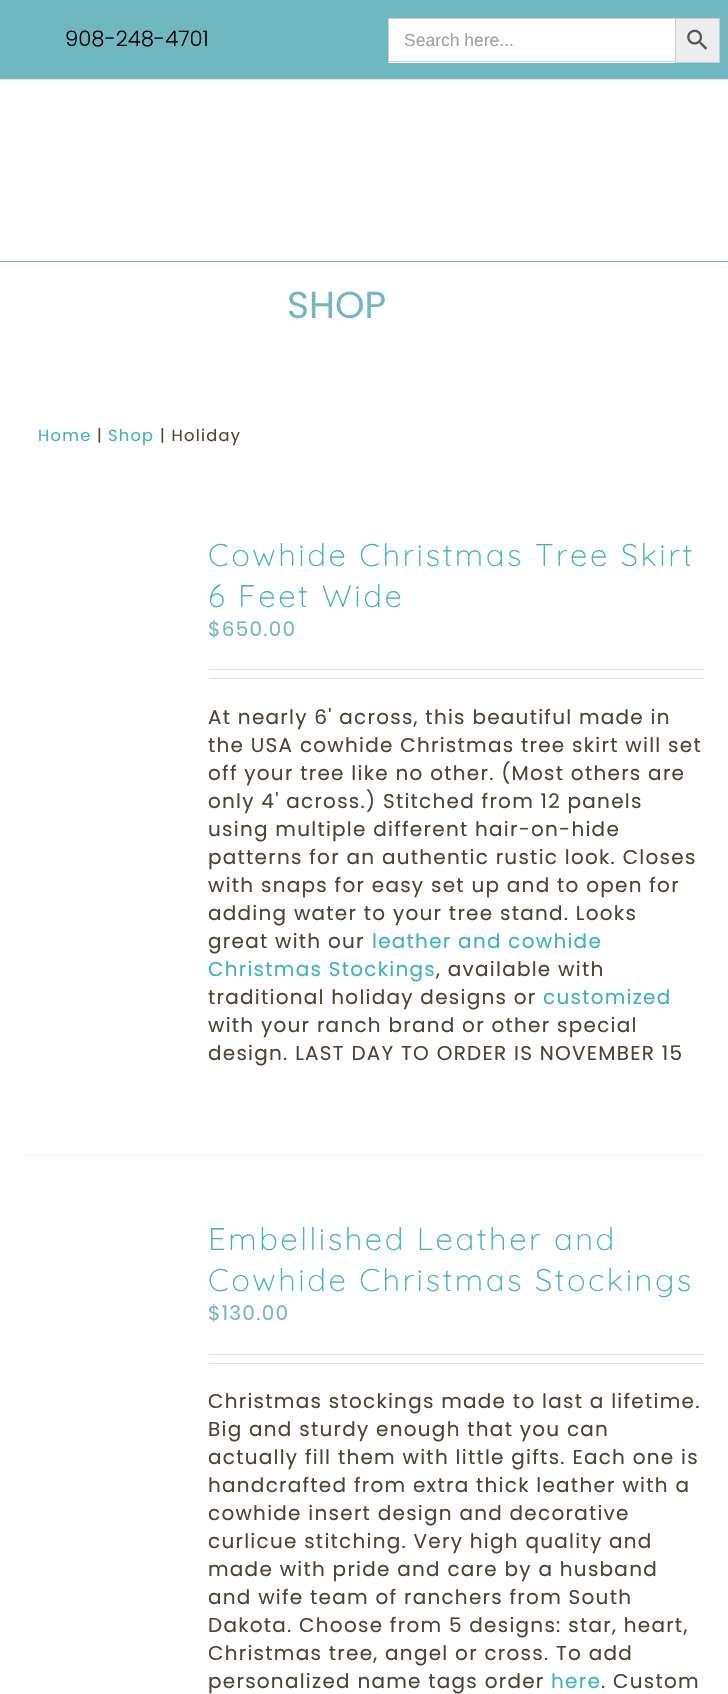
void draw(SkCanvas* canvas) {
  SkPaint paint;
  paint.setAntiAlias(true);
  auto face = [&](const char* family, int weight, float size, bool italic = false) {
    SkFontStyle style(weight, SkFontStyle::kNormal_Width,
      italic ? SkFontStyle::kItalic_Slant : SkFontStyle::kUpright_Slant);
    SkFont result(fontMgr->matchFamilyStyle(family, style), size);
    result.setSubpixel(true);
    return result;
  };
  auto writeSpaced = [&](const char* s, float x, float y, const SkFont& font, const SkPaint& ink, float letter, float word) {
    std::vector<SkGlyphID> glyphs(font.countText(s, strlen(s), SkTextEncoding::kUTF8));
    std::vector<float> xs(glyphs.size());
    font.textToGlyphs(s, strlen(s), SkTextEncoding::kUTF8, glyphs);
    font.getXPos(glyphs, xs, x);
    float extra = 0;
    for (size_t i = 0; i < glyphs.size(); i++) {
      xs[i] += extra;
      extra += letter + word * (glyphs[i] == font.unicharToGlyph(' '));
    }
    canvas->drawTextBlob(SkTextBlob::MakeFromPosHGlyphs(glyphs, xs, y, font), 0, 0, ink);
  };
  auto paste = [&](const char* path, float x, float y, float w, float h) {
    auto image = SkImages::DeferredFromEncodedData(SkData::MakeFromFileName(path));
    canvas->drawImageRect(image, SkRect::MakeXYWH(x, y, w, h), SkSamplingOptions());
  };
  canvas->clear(0xffffffff);
  {
    const struct { float x, y, w, h; SkColor color; } items[] = {
      {0, 0, 728, 79, 0xff70b8c0},
      {0, 79, 728, 1, 0xffe2e2e2},
      {389, 19, 286, 44, 0xffffffff},
      {388, 18, 287, 1, 0xffcccccc},
      {388, 61, 287, 1, 0xffcccccc},
      {388, 18, 1, 45, 0xffcccccc},
    };
    for (auto [x, y, w, h, color] : items) {
      paint.setColor(color);
      canvas->drawRect(SkRect::MakeXYWH(x, y, w, h), paint);
    }
  }
  paint.setColor(0xffededed);
  canvas->drawRect(SkRect::MakeXYWH(675.5f, 18.5f, 44, 44), paint);
  paint.setStroke(true);
  paint.setStrokeWidth(1);
  paint.setColor(0xffcccccc);
  canvas->drawRect(SkRect::MakeXYWH(675.5f, 18.5f, 44, 44), paint);
  paste("img/1.png", 687, 29, 21, 21);
  paint.setStroke(false);
  {
    const struct { float x, y, w, h; SkColor color; } items[] = {
      {0, 261, 728, 1, 0xff70b8c0},
      {25, 1155, 679, 1, 0xfff2f3f5},
      {209, 669, 495, 1, 0xffe2e2e2},
      {209, 678, 495, 1, 0xffe2e2e2},
      {209, 1354, 495, 1, 0xffe2e2e2},
      {209, 1363, 495, 1, 0xffe2e2e2},
    };
    for (auto [x, y, w, h, color] : items) {
      paint.setColor(color);
      canvas->drawRect(SkRect::MakeXYWH(x, y, w, h), paint);
    }
  }
  auto f0 = face("Poppins", 300, 21.25f);
  paint.setColor(0xff000000);
  canvas->drawString("908-248-4701", 65, 46, f0, paint);
  auto f1 = face("Liberation Sans", 400, 17.5f);
  paint.setColor(0xff9ea0a4);
  canvas->drawString("Search here...", 404, 46, f1, paint);
  auto f2 = face("Poppins", 400, 37.5f);
  paint.setColor(0xff70b8c0);
  canvas->drawString("SHOP", 287, 318, f2, paint);
  auto f3 = face("Poppins", 400, 16.25f);
  paint.setColor(0xff3bb2bf);
  writeSpaced("Home", 38, 441, f3, paint, 1.25f, 0);
  paint.setColor(0xff4c4236);
  writeSpaced("|", 97, 441, f3, paint, 1.25f, 0);
  paint.setColor(0xff3bb2bf);
  writeSpaced("Shop", 108, 441, f3, paint, 1.25f, 0);
  paint.setColor(0xff4c4236);
  writeSpaced("| Holiday", 160, 441, f3, paint, 1.25f, 0);
  auto f4 = face("Quicksand", 300, 31.25f);
  paint.setColor(0xff3bb2bf);
  writeSpaced("Cowhide Christmas Tree Skirt", 208, 566, f4, paint, 2.5f, 0);
  writeSpaced("6 Feet Wide", 208, 607, f4, paint, 2.5f, 0);
  auto f5 = face("Poppins", 400, 20);
  paint.setColor(0xff70b8c0);
  writeSpaced("$650.00", 208, 636, f5, paint, 1.25f, 0);
  paint.setColor(0xff4c4236);
  {
    const struct { const char* s; float x, y; } items[] = {
      {"At nearly 6' across, this beautiful made in", 208, 724},
      {"the USA cowhide Christmas tree skirt will set", 208, 752},
      {"off your tree like no other. (Most others are", 208, 780},
      {"only 4' across.) Stitched from 12 panels", 208, 808},
      {"using multiple different hair-on-hide", 208, 836},
      {"patterns for an authentic rustic look. Closes", 208, 864},
      {"with snaps for easy set up and to open for", 208, 892},
      {"adding water to your tree stand. Looks", 208, 920},
      {"great with our", 208, 948},
    };
    for (auto [s, x, y] : items) {
      writeSpaced(s, x, y, f5, paint, 1.25f, 0);
    }
  }
  paint.setColor(0xff3bb2bf);
  writeSpaced("leather and cowhide", 372, 948, f5, paint, 1.25f, 0);
  writeSpaced("Christmas Stockings", 208, 976, f5, paint, 1.25f, 0);
  paint.setColor(0xff4c4236);
  writeSpaced(", available with", 436, 976, f5, paint, 1.25f, 0);
  writeSpaced("traditional holiday designs or", 208, 1004, f5, paint, 1.25f, 0);
  paint.setColor(0xff3bb2bf);
  writeSpaced("customized", 543, 1004, f5, paint, 1.25f, 0);
  paint.setColor(0xff4c4236);
  writeSpaced("with your ranch brand or other special", 208, 1032, f5, paint, 1.25f, 0);
  writeSpaced("design. LAST DAY TO ORDER IS NOVEMBER 15", 208, 1060, f5, paint, 1.25f, 0);
  paint.setColor(0xff3bb2bf);
  writeSpaced("Embellished Leather and", 208, 1250, f4, paint, 2.5f, 0);
  writeSpaced("Cowhide Christmas Stockings", 208, 1291, f4, paint, 2.5f, 0);
  paint.setColor(0xff70b8c0);
  writeSpaced("$130.00", 208, 1320, f5, paint, 1.25f, 0);
  paint.setColor(0xff4c4236);
  {
    const struct { const char* s; float x, y; } items[] = {
      {"Christmas stockings made to last a lifetime.", 208, 1408},
      {"Big and sturdy enough that you can", 208, 1436},
      {"actually fill them with little gifts. Each one is", 208, 1464},
      {"handcrafted from extra thick leather with a", 208, 1492},
      {"cowhide insert design and decorative", 208, 1520},
      {"curlicue stitching. Very high quality and", 208, 1548},
      {"made with pride and care by a husband", 208, 1576},
      {"and wife team of ranchers from South", 208, 1604},
      {"Dakota. Choose from 5 designs: star, heart,", 208, 1632},
      {"Christmas tree, angel or cross. To add", 208, 1660},
      {"personalized name tags order", 208, 1688},
    };
    for (auto [s, x, y] : items) {
      writeSpaced(s, x, y, f5, paint, 1.25f, 0);
    }
  }
  paint.setColor(0xff3bb2bf);
  writeSpaced("here", 551, 1688, f5, paint, 1.25f, 0);
  paint.setColor(0xff4c4236);
  writeSpaced(". Custom", 601, 1688, f5, paint, 1.25f, 0);
}
